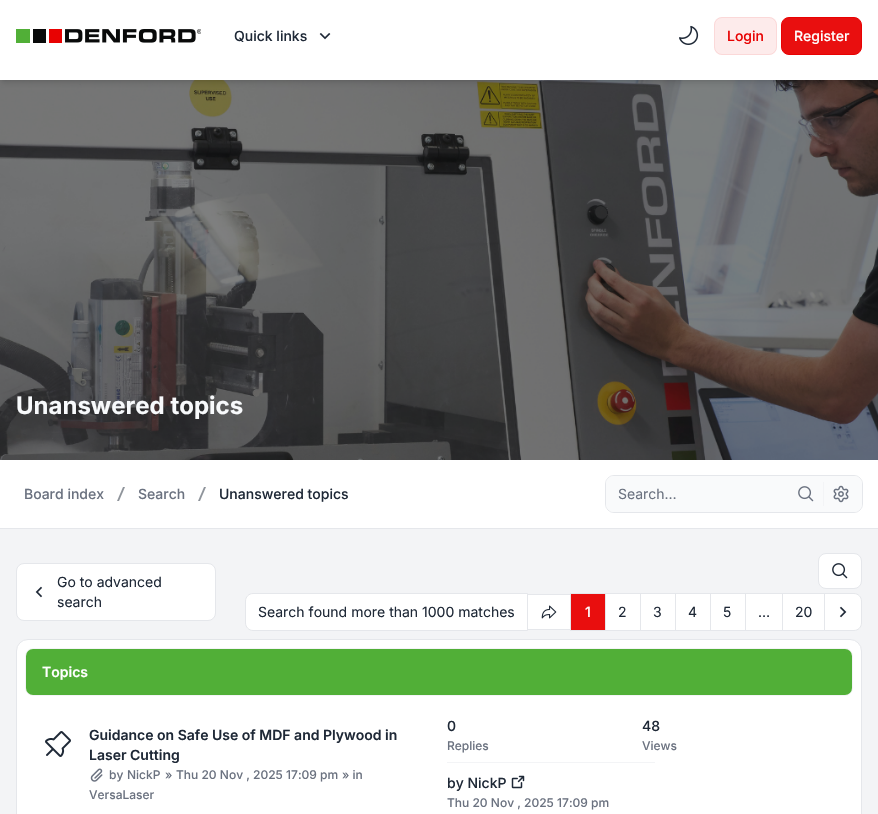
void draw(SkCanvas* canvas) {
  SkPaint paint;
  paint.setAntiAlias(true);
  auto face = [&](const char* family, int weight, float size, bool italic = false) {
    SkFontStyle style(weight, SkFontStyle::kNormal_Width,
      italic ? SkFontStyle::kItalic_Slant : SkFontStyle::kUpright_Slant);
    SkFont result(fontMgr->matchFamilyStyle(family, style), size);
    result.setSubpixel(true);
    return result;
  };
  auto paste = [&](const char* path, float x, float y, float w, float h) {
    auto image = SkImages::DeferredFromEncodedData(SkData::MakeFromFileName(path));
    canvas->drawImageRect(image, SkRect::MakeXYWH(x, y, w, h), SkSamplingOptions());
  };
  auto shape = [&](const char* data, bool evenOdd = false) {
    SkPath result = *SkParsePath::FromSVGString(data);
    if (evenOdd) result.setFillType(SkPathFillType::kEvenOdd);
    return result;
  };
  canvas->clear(0xfff3f4f6);
  paste("img/4.png", 0, 80, 878, 380);
  paint.setColor(0x1a000000);
  paint.setMaskFilter(SkMaskFilter::MakeBlur(kNormal_SkBlurStyle, 2));
  canvas->drawRect(SkRect::MakeXYWH(2, 4, 874, 76), paint);
  paint.setMaskFilter(nullptr);
  paint.setMaskFilter(SkMaskFilter::MakeBlur(kNormal_SkBlurStyle, 3));
  canvas->drawRect(SkRect::MakeXYWH(1, 5, 876, 78), paint);
  paint.setMaskFilter(nullptr);
  paint.setColor(0xffffffff);
  canvas->drawRect(SkRect::MakeXYWH(0, 0, 878, 80), paint);
  paste("img/1.png", 16, 29, 185, 14);
  paste("img/2.png", 319, 33, 12, 7);
  paste("img/3.png", 679, 25, 20, 20);
  paint.setColor(0xfffdebeb);
  canvas->drawRoundRect(SkRect::MakeXYWH(714, 17, 63, 38), 8, 8, paint);
  paint.setStroke(true);
  paint.setStrokeWidth(1);
  paint.setColor(0x14e80202);
  canvas->drawRoundRect(SkRect::MakeXYWH(714.5f, 17.5f, 62, 37), 7.5f, 7.5f, paint);
  paint.setStroke(false);
  paint.setColor(0xffe90f0f);
  canvas->drawRoundRect(SkRect::MakeXYWH(781.5f, 17.5f, 80, 37), 7.5f, 7.5f, paint);
  paint.setStroke(true);
  paint.setColor(0xffe80202);
  canvas->drawRoundRect(SkRect::MakeXYWH(781.5f, 17.5f, 80, 37), 7.5f, 7.5f, paint);
  paint.setStroke(false);
  paint.setColor(0xffffffff);
  canvas->drawRect(SkRect::MakeXYWH(0, 460, 878, 68), paint);
  paint.setColor(0xffe5e7eb);
  canvas->drawRect(SkRect::MakeXYWH(0, 528, 878, 1), paint);
  paint.setColor(0xff8f949b);
  canvas->drawPath(shape("M117 501L123 487H125L119 501Z"), paint);
  canvas->drawPath(shape("M198 501L204 487H206L200 501Z"), paint);
  paint.setStroke(true);
  paint.setColor(0xffe5e7eb);
  canvas->drawRoundRect(SkRect::MakeXYWH(605.5f, 475.5f, 257, 37), 8.5f, 8.5f, paint);
  paint.setStroke(false);
  paint.setColor(0xfff9fafb);
  canvas->drawRoundRect(SkRect::MakeXYWH(606, 476, 256, 36), 8, 8, paint);
  paste("img/5.png", 798, 486, 16, 16);
  paint.setColor(0xfff3f4f6);
  canvas->drawRect(SkRect::MakeXYWH(823, 482, 1, 24), paint);
  paste("img/6.png", 833, 485, 16, 18);
  paint.setColor(0xffffffff);
  canvas->drawRoundRect(SkRect::MakeXYWH(16.5f, 563.5f, 199, 57), 7.5f, 7.5f, paint);
  paint.setStroke(true);
  paint.setColor(0xffe5e7eb);
  canvas->drawRoundRect(SkRect::MakeXYWH(16.5f, 563.5f, 199, 57), 7.5f, 7.5f, paint);
  paste("img/7.png", 35, 586, 8, 12);
  paint.setStroke(false);
  paint.setColor(0xffffffff);
  canvas->drawRoundRect(SkRect::MakeXYWH(818.5f, 553.5f, 43, 35), 7.5f, 7.5f, paint);
  paint.setStroke(true);
  paint.setColor(0xffe5e7eb);
  canvas->drawRoundRect(SkRect::MakeXYWH(818.5f, 553.5f, 43, 35), 7.5f, 7.5f, paint);
  paste("img/8.png", 832, 563, 16, 16);
  paint.setStroke(false);
  paint.setColor(0xffffffff);
  canvas->drawPath(shape("M253 593.5H527.5V630.5H253C249 630.5 245.5 627 245.5 623V601C245.5 597 249 593.5 253 593.5Z"), paint);
  paint.setStroke(true);
  paint.setColor(0xffe5e7eb);
  canvas->drawPath(shape("M253 593.5H527.5V630.5H253C249 630.5 245.5 627 245.5 623V601C245.5 597 249 593.5 253 593.5Z"), paint);
  paint.setStroke(false);
  paint.setColor(0xffe90e0e);
  canvas->drawRect(SkRect::MakeXYWH(570.5f, 593.5f, 35, 37), paint);
  paint.setStroke(true);
  paint.setColor(0xffe5e7eb);
  canvas->drawRect(SkRect::MakeXYWH(570.5f, 593.5f, 35, 37), paint);
  paint.setStroke(false);
  paint.setColor(0xffffffff);
  canvas->drawRect(SkRect::MakeXYWH(527.5f, 594.5f, 43, 35), paint);
  paint.setStroke(true);
  paint.setColor(0xffe5e7eb);
  canvas->drawRect(SkRect::MakeXYWH(527.5f, 594.5f, 43, 35), paint);
  paste("img/9.png", 541, 605, 16, 14);
  paint.setStroke(false);
  paint.setColor(0xffffffff);
  canvas->drawRect(SkRect::MakeXYWH(605.5f, 593.5f, 35, 37), paint);
  paint.setStroke(true);
  paint.setColor(0xffe5e7eb);
  canvas->drawRect(SkRect::MakeXYWH(605.5f, 593.5f, 35, 37), paint);
  paint.setStroke(false);
  paint.setColor(0xffffffff);
  canvas->drawRect(SkRect::MakeXYWH(640.5f, 593.5f, 35, 37), paint);
  paint.setStroke(true);
  paint.setColor(0xffe5e7eb);
  canvas->drawRect(SkRect::MakeXYWH(640.5f, 593.5f, 35, 37), paint);
  paint.setStroke(false);
  paint.setColor(0xffffffff);
  canvas->drawRect(SkRect::MakeXYWH(675.5f, 593.5f, 35, 37), paint);
  paint.setStroke(true);
  paint.setColor(0xffe5e7eb);
  canvas->drawRect(SkRect::MakeXYWH(675.5f, 593.5f, 35, 37), paint);
  paint.setStroke(false);
  paint.setColor(0xffffffff);
  canvas->drawRect(SkRect::MakeXYWH(745.5f, 593.5f, 37, 37), paint);
  paint.setStroke(true);
  paint.setColor(0xffe5e7eb);
  canvas->drawRect(SkRect::MakeXYWH(745.5f, 593.5f, 37, 37), paint);
  paint.setStroke(false);
  paint.setColor(0xffffffff);
  canvas->drawRect(SkRect::MakeXYWH(710.5f, 593.5f, 35, 37), paint);
  paint.setStroke(true);
  paint.setColor(0xffe5e7eb);
  canvas->drawRect(SkRect::MakeXYWH(710.5f, 593.5f, 35, 37), paint);
  paint.setStroke(false);
  paint.setColor(0xffffffff);
  canvas->drawRect(SkRect::MakeXYWH(782.5f, 593.5f, 42, 37), paint);
  paint.setStroke(true);
  paint.setColor(0xffe5e7eb);
  canvas->drawRect(SkRect::MakeXYWH(782.5f, 593.5f, 42, 37), paint);
  paint.setStroke(false);
  paint.setColor(0xffffffff);
  canvas->drawPath(shape("M824.5 593.5H854C858 593.5 861.5 597 861.5 601V623C861.5 627 858 630.5 854 630.5H824.5Z"), paint);
  paint.setStroke(true);
  paint.setColor(0xffe5e7eb);
  canvas->drawPath(shape("M824.5 593.5H854C858 593.5 861.5 597 861.5 601V623C861.5 627 858 630.5 854 630.5H824.5Z"), paint);
  paste("img/10.png", 839, 606, 8, 12);
  paint.setStroke(false);
  paint.setColor(0xffffffff);
  canvas->drawRoundRect(SkRect::MakeXYWH(16.5f, 639.5f, 845, 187), 11.5f, 11.5f, paint);
  paint.setStroke(true);
  paint.setColor(0xffe5e7eb);
  canvas->drawRoundRect(SkRect::MakeXYWH(16.5f, 639.5f, 845, 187), 11.5f, 11.5f, paint);
  paint.setColor(0xfff3f4f6);
  canvas->drawRoundRect(SkRect::MakeXYWH(25.5f, 648.5f, 827, 47), 7.5f, 7.5f, paint);
  paint.setStroke(false);
  paint.setColor(0xff51af37);
  canvas->drawRoundRect(SkRect::MakeXYWH(26, 649, 826, 46), 7, 7, paint);
  paste("img/11.png", 45, 731, 26, 26);
  paste("img/12.png", 90, 768, 13, 14);
  paint.setColor(0xfff3f4f6);
  canvas->drawRect(SkRect::MakeXYWH(447, 762, 208, 1), paint);
  paste("img/13.png", 511, 775, 14, 14);
  auto f0 = face("Inter", 500, 14);
  paint.setColor(0xff1f2937);
  canvas->drawString("Quick links", 234, 41, f0, paint);
  paint.setColor(0xffe80202);
  canvas->drawString("Login", 727, 41, f0, paint);
  paint.setColor(0xffffffff);
  canvas->drawString("Register", 794, 41, f0, paint);
  auto f1 = face("Inter", 700, 24);
  paint.setColor(0xfff8fafc);
  canvas->drawString("Unanswered topics", 16, 414, f1, paint);
  paint.setColor(0xff6b7280);
  canvas->drawString("Board index", 24, 499, f0, paint);
  canvas->drawString("Search", 138, 499, f0, paint);
  paint.setColor(0xff1f2937);
  canvas->drawString("Unanswered topics", 219, 499, f0, paint);
  auto f2 = face("Inter", 400, 14);
  paint.setColor(0xff6b7280);
  canvas->drawString("Search…", 618, 499, f2, paint);
  paint.setColor(0xff1f2937);
  {
    const struct { const char* s; float x, y; } items[] = {
      {"Go to advanced", 57, 587},
      {"search", 57, 607},
      {"Search found more than 1000 matches", 258, 617},
    };
    for (auto [s, x, y] : items) {
      canvas->drawString(s, x, y, f2, paint);
    }
  }
  paint.setColor(0xffffffff);
  canvas->drawString("1", 585, 617, f0, paint);
  paint.setColor(0xff1f2937);
  {
    const struct { const char* s; float x, y; } items[] = {
      {"2", 618, 617},
      {"3", 653, 617},
      {"4", 688, 617},
      {"5", 723, 617},
      {"…", 758, 617},
      {"20", 795, 617},
    };
    for (auto [s, x, y] : items) {
      canvas->drawString(s, x, y, f2, paint);
    }
  }
  auto f3 = face("Inter", 600, 14);
  paint.setColor(0xffffffff);
  canvas->drawString("Topics", 42, 677, f3, paint);
  paint.setColor(0xff1f2937);
  canvas->drawString("Guidance on Safe Use of MDF and Plywood in", 89, 740, f3, paint);
  canvas->drawString("Laser Cutting", 89, 760, f3, paint);
  auto f4 = face("Inter", 500, 12);
  paint.setColor(0xff6b7280);
  {
    const struct { const char* s; float x, y; } items[] = {
      {"by", 109, 779},
      {"NickP", 127, 779},
      {"»", 165, 779},
      {"Thu 20 Nov , 2025 17:09 pm", 176, 779},
      {"» in", 342, 779},
      {"VersaLaser", 89, 799},
    };
    for (auto [s, x, y] : items) {
      canvas->drawString(s, x, y, f4, paint);
    }
  }
  paint.setColor(0xff1f2937);
  canvas->drawString("0", 447, 731, f0, paint);
  paint.setColor(0xff6b7280);
  canvas->drawString("Replies", 447, 750, f4, paint);
  paint.setColor(0xff1f2937);
  canvas->drawString("48", 642, 731, f0, paint);
  paint.setColor(0xff6b7280);
  canvas->drawString("Views", 642, 750, f4, paint);
  paint.setColor(0xff1f2937);
  canvas->drawString("by NickP", 447, 788, f0, paint);
  paint.setColor(0xff6b7280);
  canvas->drawString("Thu 20 Nov , 2025 17:09 pm", 447, 807, f4, paint);
}
